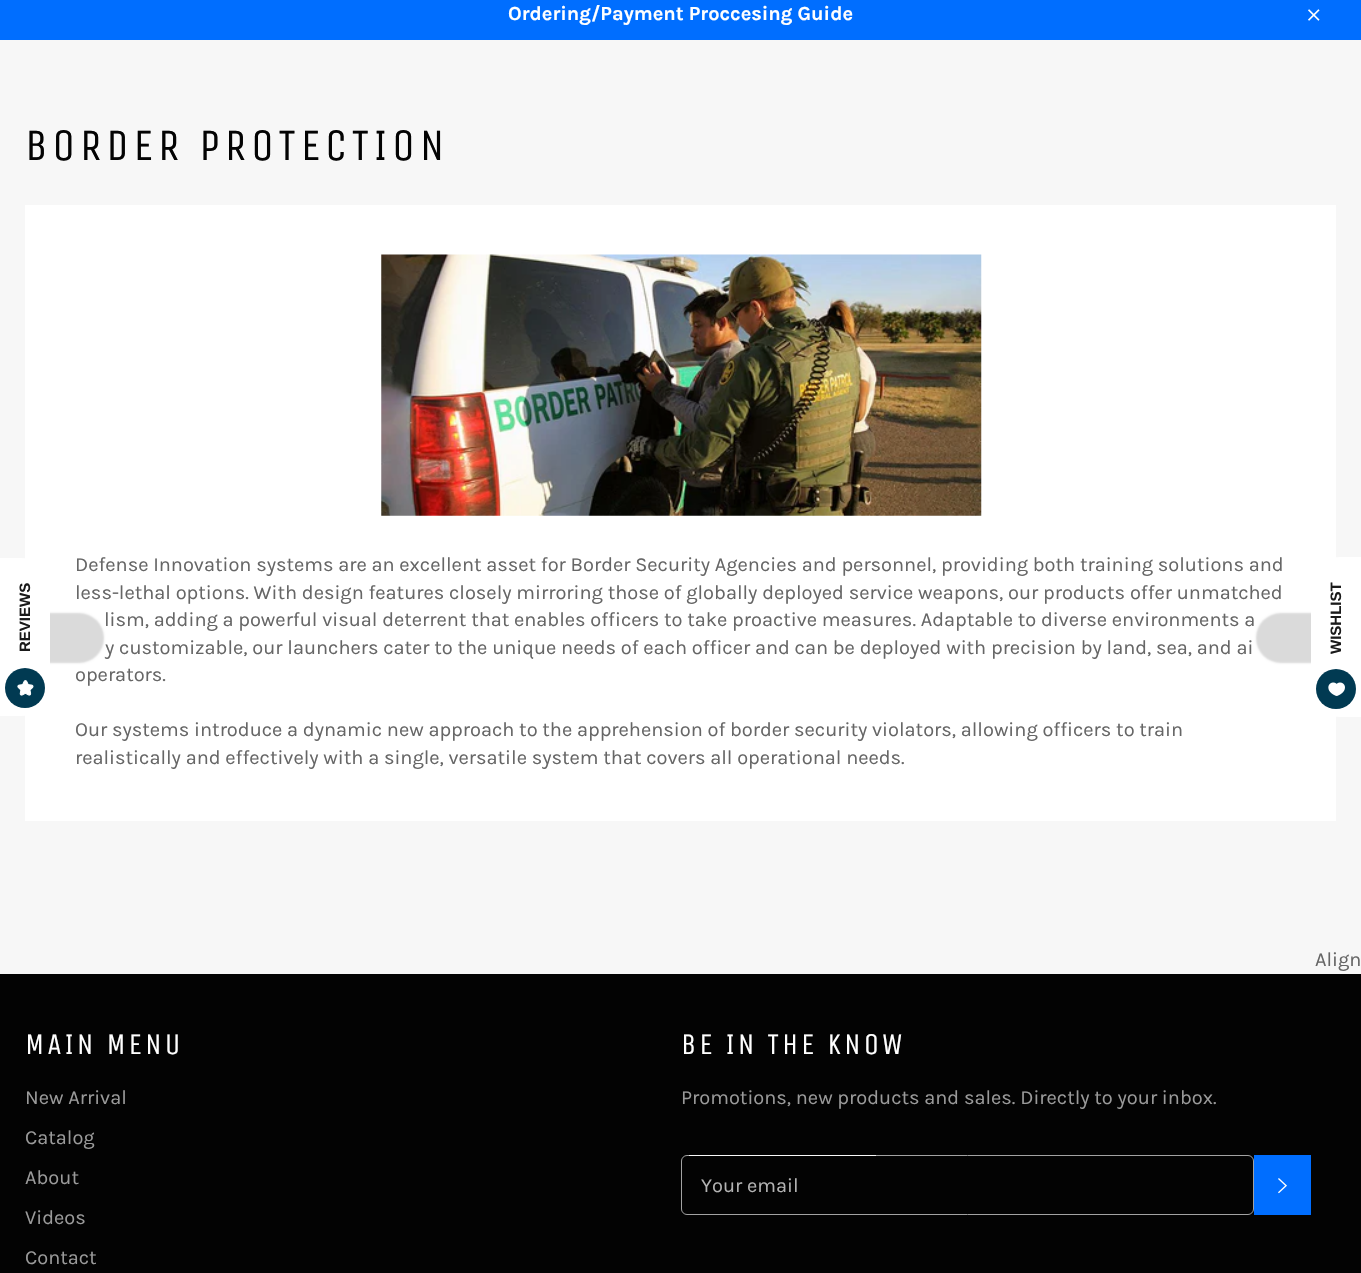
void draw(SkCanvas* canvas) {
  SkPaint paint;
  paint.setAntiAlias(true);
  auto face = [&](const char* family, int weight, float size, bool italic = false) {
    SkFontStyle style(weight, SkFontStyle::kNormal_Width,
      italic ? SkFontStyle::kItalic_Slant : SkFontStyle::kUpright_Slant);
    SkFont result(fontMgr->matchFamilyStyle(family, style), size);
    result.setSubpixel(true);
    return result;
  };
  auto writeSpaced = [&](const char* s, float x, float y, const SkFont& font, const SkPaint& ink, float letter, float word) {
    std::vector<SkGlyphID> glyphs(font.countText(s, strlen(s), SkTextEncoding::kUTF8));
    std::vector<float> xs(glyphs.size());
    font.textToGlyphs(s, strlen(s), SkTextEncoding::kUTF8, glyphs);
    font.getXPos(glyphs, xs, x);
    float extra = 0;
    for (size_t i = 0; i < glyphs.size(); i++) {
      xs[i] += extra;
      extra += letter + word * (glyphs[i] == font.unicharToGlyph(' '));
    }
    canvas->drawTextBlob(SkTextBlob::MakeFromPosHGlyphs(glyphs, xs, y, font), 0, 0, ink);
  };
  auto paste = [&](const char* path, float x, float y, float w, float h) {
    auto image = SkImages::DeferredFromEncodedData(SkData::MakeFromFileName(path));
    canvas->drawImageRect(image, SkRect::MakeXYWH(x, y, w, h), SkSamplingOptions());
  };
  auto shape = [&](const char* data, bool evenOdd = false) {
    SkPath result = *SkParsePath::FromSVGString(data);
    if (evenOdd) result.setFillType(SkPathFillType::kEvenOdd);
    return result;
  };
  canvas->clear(0xfff7f7f7);
  paint.setColor(0xff006eff);
  canvas->drawRect(SkRect::MakeXYWH(0, 0, 1361, 40), paint);
  paste("img/1.png", 1308, 9, 12, 12);
  paint.setColor(0xffffffff);
  canvas->drawRect(SkRect::MakeXYWH(25, 205, 1311, 616), paint);
  paste("img/2.png", 381, 254, 601, 262);
  paint.setColor(0xff030303);
  canvas->drawRect(SkRect::MakeXYWH(0, 974, 1361, 299), paint);
  paint.setStroke(true);
  paint.setStrokeWidth(1);
  paint.setColor(0xffa2a2a2);
  canvas->drawRoundRect(SkRect::MakeXYWH(681.5f, 1155.5f, 572, 59), 5.5f, 5.5f, paint);
  paint.setStroke(false);
  paint.setColor(0xfff8f8f8);
  canvas->drawRect(SkRect::MakeXYWH(689, 1155, 187, 1), paint);
  paint.setColor(0xff006eff);
  canvas->drawRect(SkRect::MakeXYWH(1254, 1155, 57, 60), paint);
  paste("img/3.png", 1278, 1178, 9, 16);
  paint.setColor(0xffdadada);
  paint.setMaskFilter(SkMaskFilter::MakeBlur(kNormal_SkBlurStyle, 1));
  canvas->drawRoundRect(SkRect::MakeXYWH(-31, 613, 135, 50), 28, 28, paint);
  paint.setMaskFilter(nullptr);
  paint.setColor(0xffffffff);
  canvas->drawPath(shape("M0 716V558H22C38 558 50 570 50 586V688C50 703 38 716 22 716Z"), paint);
  paint.setColor(0xff013a52);
  canvas->drawCircle(25, 688, 20, paint);
  paste("img/4.png", 17, 680, 17, 16);
  paint.setColor(0xffdadada);
  paint.setMaskFilter(SkMaskFilter::MakeBlur(kNormal_SkBlurStyle, 1));
  canvas->drawRoundRect(SkRect::MakeXYWH(1256, 613, 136, 50), 28, 28, paint);
  paint.setMaskFilter(nullptr);
  paint.setColor(0xffffffff);
  canvas->drawPath(shape("M1311 689V584C1311 569 1324 557 1339 557H1361V717H1339C1324 717 1311 705 1311 689Z"), paint);
  paint.setColor(0xff013a52);
  canvas->drawCircle(1336, 689, 20, paint);
  paste("img/5.png", 1328, 682, 17, 14);
  auto f0 = face("Karla", 700, 20);
  paint.setColor(0xffffffff);
  canvas->drawString("Ordering/Payment Proccesing Guide", 508, 20, f0, paint);
  auto f1 = face("Unica One", 400, 45);
  paint.setColor(0xff030303);
  writeSpaced("BORDER PROTECTION", 25, 160, f1, paint, 4.5f, 0);
  auto f2 = face("Karla", 400, 20);
  paint.setColor(0xff666666);
  {
    const struct { const char* s; float x, y; } items[] = {
      {"Defense Innovation systems are an excellent asset for Border Security Agencies and personnel, providing both training solutions and", 75, 571},
      {"less-lethal options. With design features closely mirroring those of globally deployed service weapons, our products offer unmatched", 75, 599},
      {"lism, adding a powerful visual deterrent that enables officers to take proactive measures. Adaptable to diverse environments a", 104, 626},
      {"y customizable, our launchers cater to the unique needs of each officer and can be deployed with precision by land, sea, and ai", 105, 654},
      {"operators.", 75, 681},
      {"Our systems introduce a dynamic new approach to the apprehension of border security violators, allowing officers to train", 75, 736},
      {"realistically and effectively with a single, versatile system that covers all operational needs.", 75, 764},
      {"Align", 1315, 966},
    };
    for (auto [s, x, y] : items) {
      canvas->drawString(s, x, y, f2, paint);
    }
  }
  auto f3 = face("Unica One", 400, 30);
  paint.setColor(0xffffffff);
  writeSpaced("MAIN MENU", 25, 1054, f3, paint, 3, 0);
  paint.setColor(0xff9a9a9a);
  {
    const struct { const char* s; float x, y; } items[] = {
      {"New Arrival", 25, 1104},
      {"Catalog", 25, 1144},
      {"About", 25, 1184},
      {"Videos", 25, 1224},
      {"Contact", 25, 1264},
    };
    for (auto [s, x, y] : items) {
      canvas->drawString(s, x, y, f2, paint);
    }
  }
  paint.setColor(0xffffffff);
  writeSpaced("BE IN THE KNOW", 681, 1054, f3, paint, 3, 0);
  paint.setColor(0xff9a9a9a);
  canvas->drawString("Promotions, new products and sales. Directly to your inbox.", 681, 1104, f2, paint);
  paint.setColor(0xffb3b3b3);
  canvas->drawString("Your email", 701, 1192, f2, paint);
  auto f4 = face("Liberation Sans", 700, 15);
  paint.setColor(0xff1a1a1a);
  canvas->save();
  canvas->rotate(-90, 30, 652);
  canvas->drawString("REVIEWS", 30, 652, f4, paint);
  canvas->restore();
  canvas->save();
  canvas->rotate(-90, 1341, 654);
  canvas->drawString("WISHLIST", 1341, 654, f4, paint);
  canvas->restore();
}
